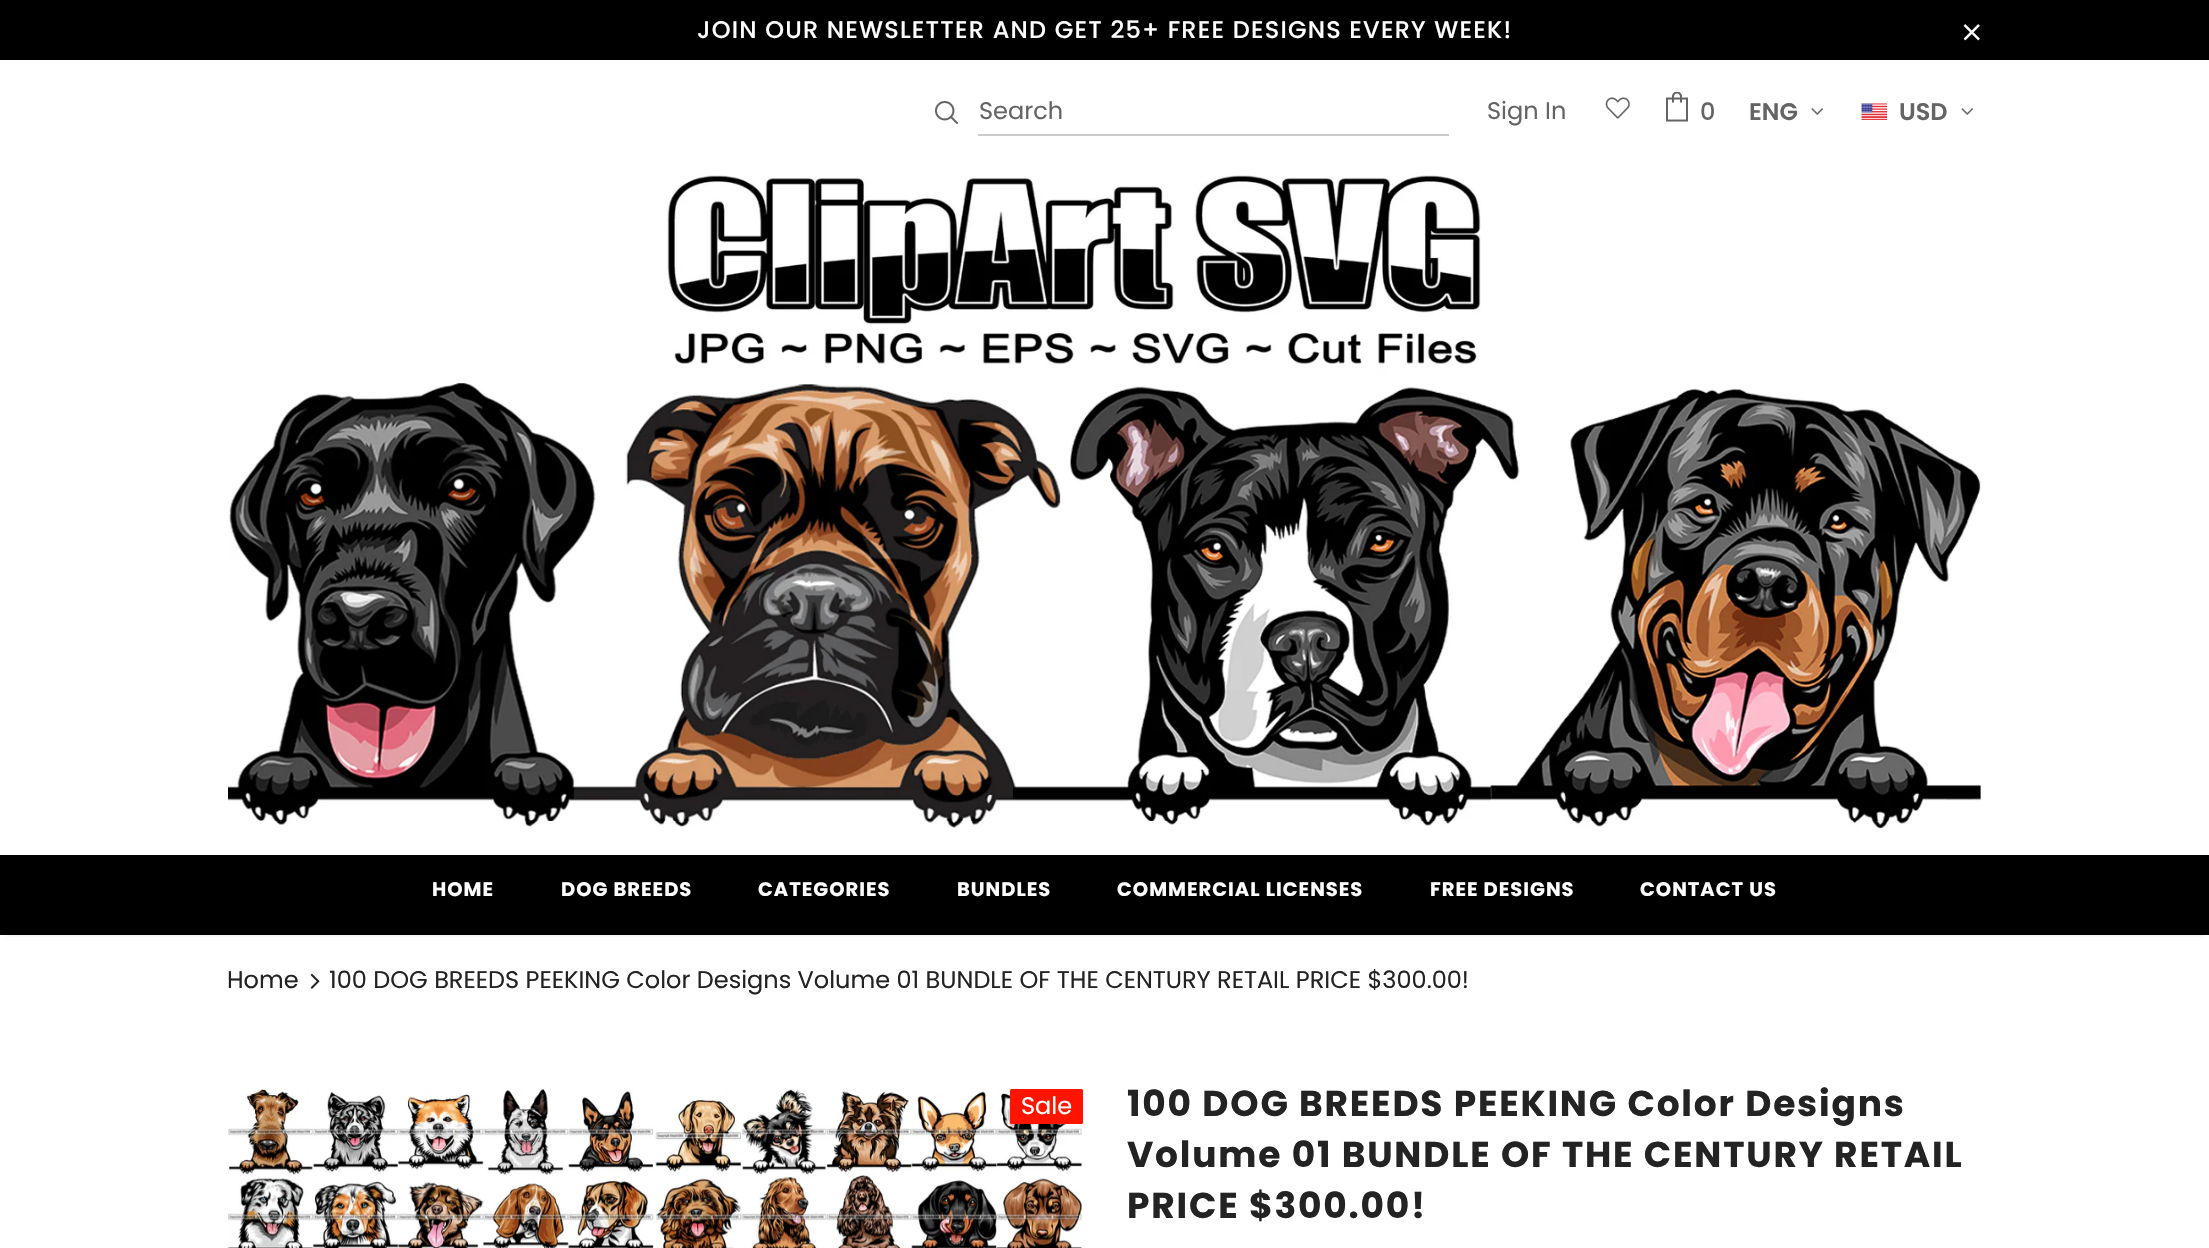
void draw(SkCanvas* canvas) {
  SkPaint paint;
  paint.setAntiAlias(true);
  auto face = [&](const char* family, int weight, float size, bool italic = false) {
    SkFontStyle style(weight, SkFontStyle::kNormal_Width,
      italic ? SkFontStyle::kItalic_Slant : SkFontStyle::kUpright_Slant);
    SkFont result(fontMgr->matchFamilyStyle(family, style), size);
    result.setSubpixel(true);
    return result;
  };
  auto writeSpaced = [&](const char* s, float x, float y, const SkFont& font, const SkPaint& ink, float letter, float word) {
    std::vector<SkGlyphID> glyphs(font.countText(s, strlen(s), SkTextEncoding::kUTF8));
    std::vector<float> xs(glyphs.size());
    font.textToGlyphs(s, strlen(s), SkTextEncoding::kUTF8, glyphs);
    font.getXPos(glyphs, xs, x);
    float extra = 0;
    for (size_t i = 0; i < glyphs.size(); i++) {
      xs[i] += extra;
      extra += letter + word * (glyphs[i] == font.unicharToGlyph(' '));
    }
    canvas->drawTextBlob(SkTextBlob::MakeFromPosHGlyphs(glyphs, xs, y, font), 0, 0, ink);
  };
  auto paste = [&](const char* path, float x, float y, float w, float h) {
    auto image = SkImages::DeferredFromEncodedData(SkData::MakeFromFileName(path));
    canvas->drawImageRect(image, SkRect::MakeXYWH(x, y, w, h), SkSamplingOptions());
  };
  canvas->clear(0xffffffff);
  paint.setColor(0xff000000);
  canvas->drawRect(SkRect::MakeXYWH(0, 0, 2209, 60), paint);
  paste("img/1.png", 1963, 24, 17, 17);
  paste("img/2.png", 935, 101, 23, 23);
  paint.setColor(0xffcbcbcb);
  canvas->drawRect(SkRect::MakeXYWH(978, 134, 471, 2), paint);
  paste("img/3.png", 1605, 97, 25, 22);
  paste("img/4.png", 1666, 92, 22, 30);
  paste("img/5.png", 1811, 108, 12, 7);
  paste("img/6.png", 1861, 103, 26, 17);
  paste("img/5.png", 1961, 108, 12, 7);
  paste("img/7.png", 228, 175, 1753, 654);
  paint.setColor(0x1a000000);
  paint.setMaskFilter(SkMaskFilter::MakeBlur(kNormal_SkBlurStyle, 2));
  canvas->drawRect(SkRect::MakeXYWH(5, 864, 2200, 71), paint);
  paint.setMaskFilter(nullptr);
  paint.setColor(0xff000000);
  canvas->drawRect(SkRect::MakeXYWH(0, 855, 2209, 80), paint);
  paste("img/8.png", 310, 973, 10, 16);
  paste("img/9.png", 228, 1089, 854, 159);
  paint.setColor(0xffff1400);
  canvas->drawRoundRect(SkRect::MakeXYWH(1010, 1089, 73, 35), 1.5f, 1.5f, paint);
  auto f0 = face("Poppins", 500, 24);
  paint.setColor(0xffffffff);
  writeSpaced("JOIN OUR NEWSLETTER AND GET 25+ FREE DESIGNS EVERY WEEK!", 697, 38, f0, paint, 1.2f, 0);
  auto f1 = face("Poppins", 400, 24);
  paint.setColor(0xff646464);
  canvas->drawString("Search", 979, 119, f1, paint);
  canvas->drawString("Sign In", 1487, 119, f1, paint);
  canvas->drawString("0", 1700, 120, f0, paint);
  auto f2 = face("Poppins", 600, 24);
  canvas->drawString("ENG", 1749, 120, f2, paint);
  canvas->drawString("USD", 1899, 120, f2, paint);
  auto f3 = face("Poppins", 700, 19.5f);
  paint.setColor(0xffffffff);
  {
    const struct { const char* s; float x, y; } items[] = {
      {"HOME", 432, 896},
      {"DOG BREEDS", 561, 896},
      {"CATEGORIES", 758, 896},
      {"BUNDLES", 957, 896},
      {"COMMERCIAL LICENSES", 1117, 896},
      {"FREE DESIGNS", 1430, 896},
      {"CONTACT US", 1640, 896},
    };
    for (auto [s, x, y] : items) {
      writeSpaced(s, x, y, f3, paint, 1, 0);
    }
  }
  paint.setColor(0xff232323);
  canvas->drawString("Home", 227, 988, f1, paint);
  canvas->drawString("100 DOG BREEDS PEEKING Color Designs Volume 01 BUNDLE OF THE CENTURY RETAIL PRICE $300.00!", 329, 988, f1, paint);
  paint.setColor(0xffffffff);
  canvas->drawString("Sale", 1021, 1114, f1, paint);
  auto f4 = face("Poppins", 700, 36);
  paint.setColor(0xff232323);
  {
    const struct { const char* s; float x, y; } items[] = {
      {"100 DOG BREEDS PEEKING Color Designs", 1127, 1116},
      {"Volume 01 BUNDLE OF THE CENTURY RETAIL", 1127, 1167},
      {"PRICE $300.00!", 1127, 1218},
    };
    for (auto [s, x, y] : items) {
      writeSpaced(s, x, y, f4, paint, 1.8f, 0);
    }
  }
}
